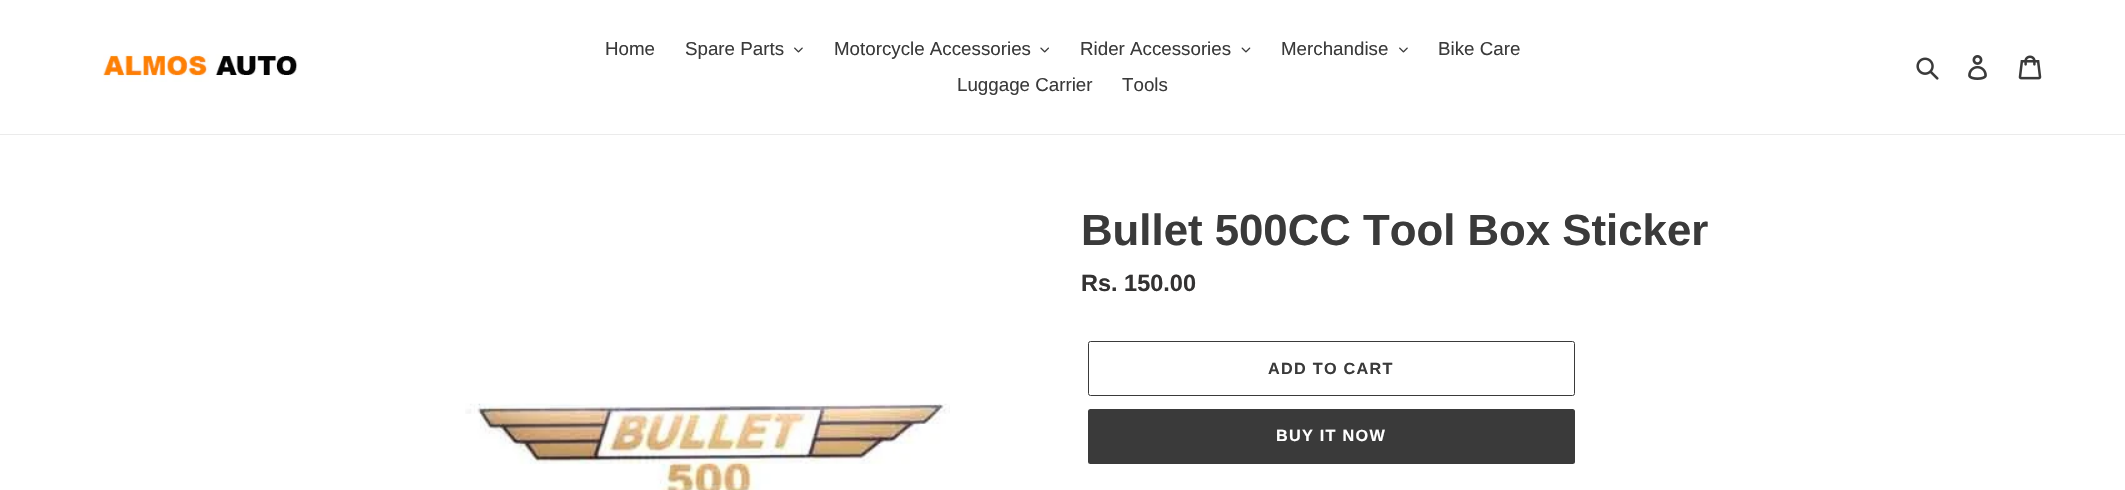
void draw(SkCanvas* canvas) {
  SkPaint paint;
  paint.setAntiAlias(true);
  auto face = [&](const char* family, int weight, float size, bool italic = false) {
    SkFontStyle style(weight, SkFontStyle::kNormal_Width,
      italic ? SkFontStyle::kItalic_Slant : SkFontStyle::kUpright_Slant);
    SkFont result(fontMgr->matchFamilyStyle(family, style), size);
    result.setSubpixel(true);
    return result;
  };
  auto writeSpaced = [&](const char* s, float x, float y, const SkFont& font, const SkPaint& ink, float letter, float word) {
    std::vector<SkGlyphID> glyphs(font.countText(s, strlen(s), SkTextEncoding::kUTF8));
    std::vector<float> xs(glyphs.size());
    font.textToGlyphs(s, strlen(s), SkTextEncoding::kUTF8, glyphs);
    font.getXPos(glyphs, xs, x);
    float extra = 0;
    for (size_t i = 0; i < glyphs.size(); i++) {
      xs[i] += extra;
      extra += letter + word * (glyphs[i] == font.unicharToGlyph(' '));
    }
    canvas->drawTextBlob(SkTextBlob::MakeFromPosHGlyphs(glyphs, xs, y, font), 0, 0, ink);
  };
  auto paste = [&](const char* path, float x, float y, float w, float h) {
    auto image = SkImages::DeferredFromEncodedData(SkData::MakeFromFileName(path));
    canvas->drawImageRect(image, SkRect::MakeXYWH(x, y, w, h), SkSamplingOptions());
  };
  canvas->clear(0xffffffff);
  paint.setColor(0xffebebeb);
  canvas->drawRect(SkRect::MakeXYWH(0, 134, 2125, 1), paint);
  paste("img/1.png", 103, 54, 195, 28);
  paste("img/2.png", 794, 47, 9, 6);
  paste("img/3.png", 1040, 47, 9, 6);
  paste("img/4.png", 1241, 47, 10, 6);
  paste("img/2.png", 1399, 47, 9, 6);
  paste("img/5.png", 1916, 57, 23, 23);
  paste("img/6.png", 1968, 55, 19, 25);
  paste("img/7.png", 2018, 55, 24, 25);
  paste("img/8.png", 465, 403, 485, 87);
  paint.setStroke(true);
  paint.setStrokeWidth(1);
  paint.setColor(0xff3a3a3a);
  canvas->drawRoundRect(SkRect::MakeXYWH(1088.5f, 341.5f, 486, 54), 2, 2, paint);
  paint.setStroke(false);
  canvas->drawRoundRect(SkRect::MakeXYWH(1088, 409, 487, 55), 2.5f, 2.5f, paint);
  auto f0 = face("Liberation Sans", 400, 18.75f);
  {
    const struct { const char* s; float x, y; } items[] = {
      {"Home", 605, 55},
      {"Spare Parts", 685, 55},
      {"Motorcycle Accessories", 834, 55},
      {"Rider Accessories", 1080, 55},
      {"Merchandise", 1281, 55},
      {"Bike Care", 1438, 55},
      {"Luggage Carrier", 957, 91},
      {"Tools", 1122, 91},
    };
    for (auto [s, x, y] : items) {
      canvas->drawString(s, x, y, f0, paint);
    }
  }
  auto f1 = face("Liberation Sans", 700, 43.75f);
  canvas->drawString("Bullet 500CC Tool Box Sticker", 1081, 245, f1, paint);
  auto f2 = face("Liberation Sans", 700, 23.5f);
  paint.setColor(0xff333232);
  canvas->drawString("Rs. 150.00", 1081, 291, f2, paint);
  auto f3 = face("Liberation Sans", 700, 16.25f);
  paint.setColor(0xff3a3a3a);
  writeSpaced("ADD TO CART", 1268, 374, f3, paint, 1.25f, 0);
  paint.setColor(0xffffffff);
  writeSpaced("BUY IT NOW", 1276, 441, f3, paint, 1.25f, 0);
}
